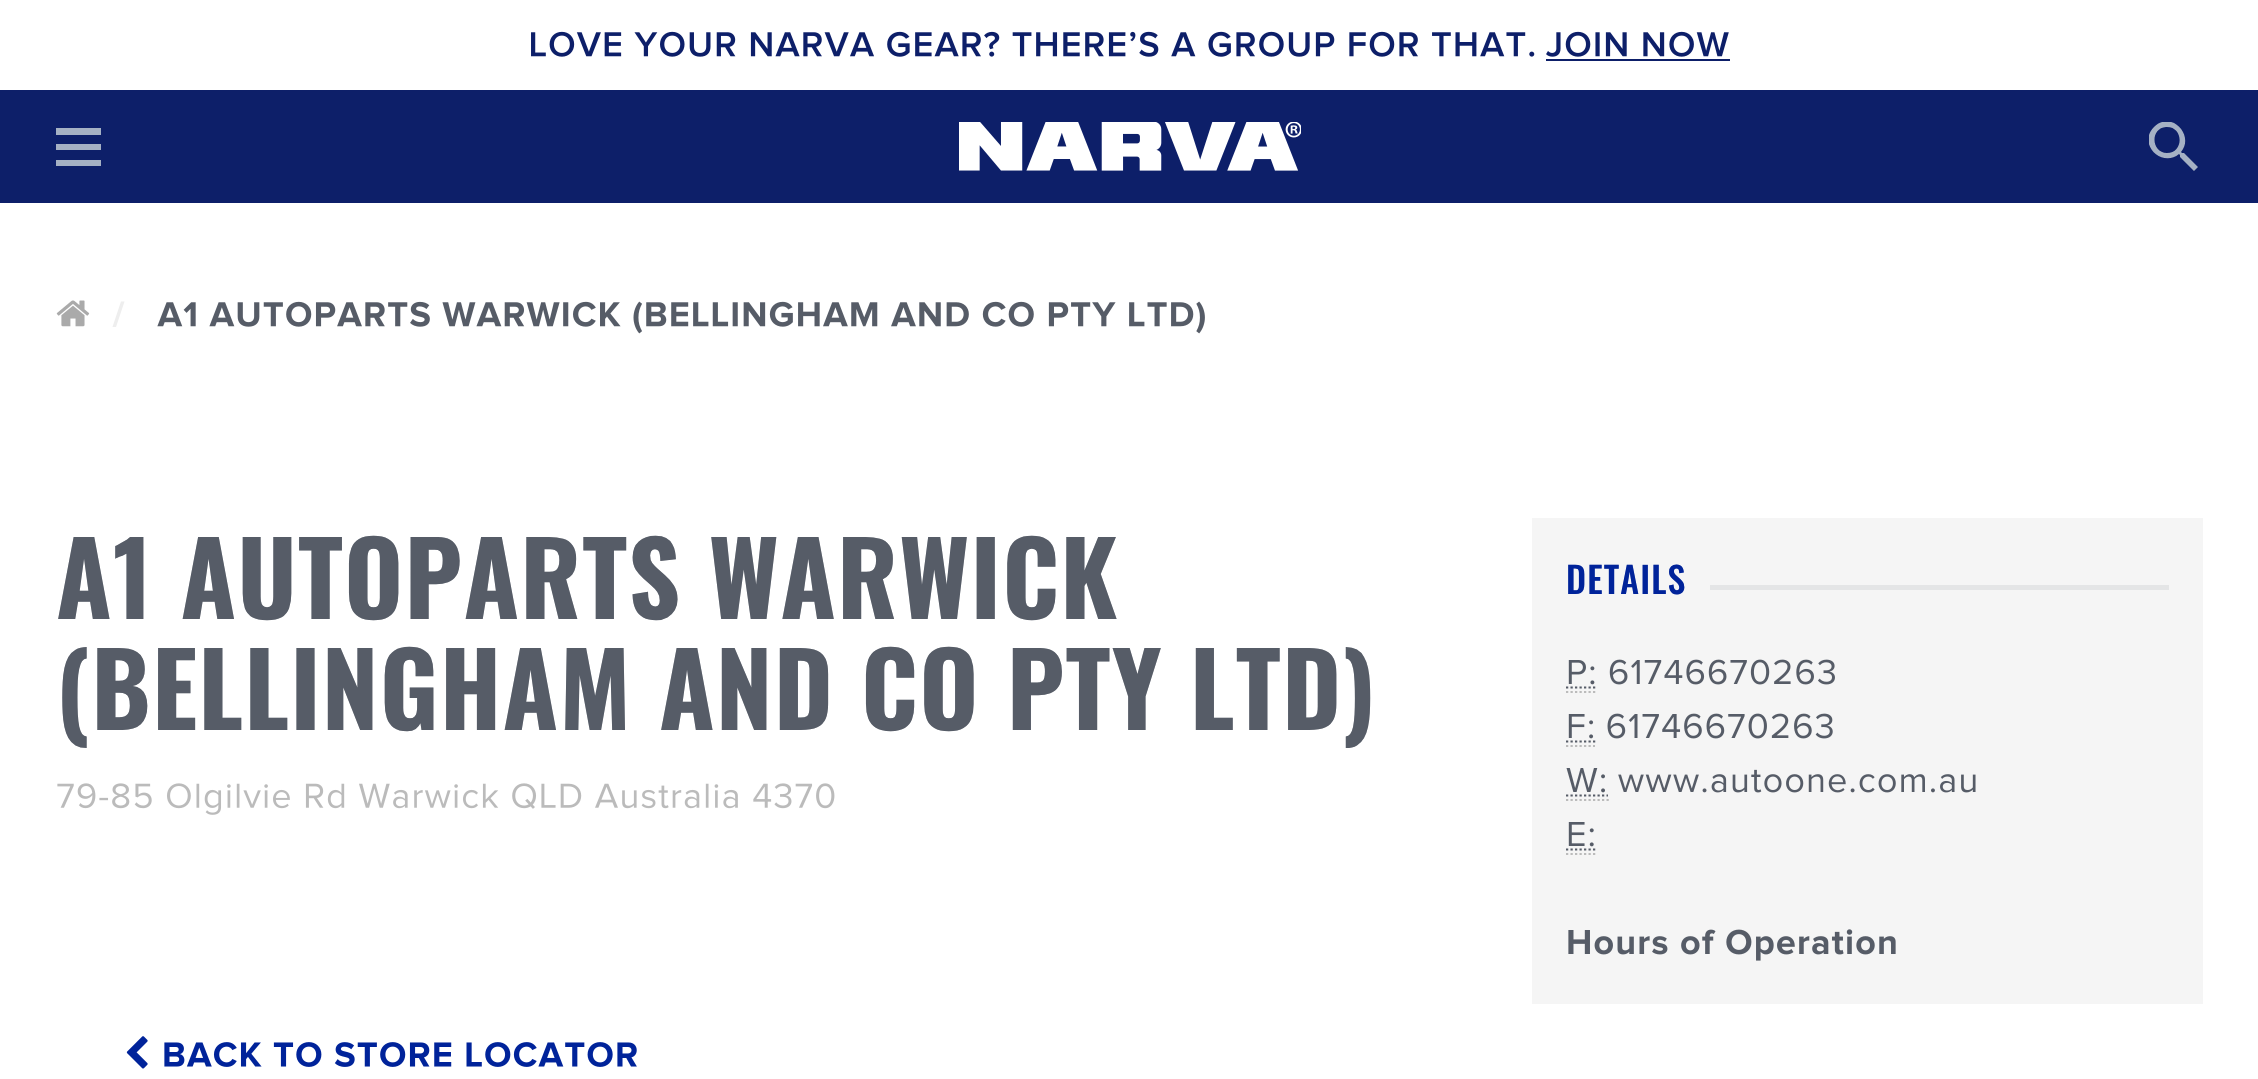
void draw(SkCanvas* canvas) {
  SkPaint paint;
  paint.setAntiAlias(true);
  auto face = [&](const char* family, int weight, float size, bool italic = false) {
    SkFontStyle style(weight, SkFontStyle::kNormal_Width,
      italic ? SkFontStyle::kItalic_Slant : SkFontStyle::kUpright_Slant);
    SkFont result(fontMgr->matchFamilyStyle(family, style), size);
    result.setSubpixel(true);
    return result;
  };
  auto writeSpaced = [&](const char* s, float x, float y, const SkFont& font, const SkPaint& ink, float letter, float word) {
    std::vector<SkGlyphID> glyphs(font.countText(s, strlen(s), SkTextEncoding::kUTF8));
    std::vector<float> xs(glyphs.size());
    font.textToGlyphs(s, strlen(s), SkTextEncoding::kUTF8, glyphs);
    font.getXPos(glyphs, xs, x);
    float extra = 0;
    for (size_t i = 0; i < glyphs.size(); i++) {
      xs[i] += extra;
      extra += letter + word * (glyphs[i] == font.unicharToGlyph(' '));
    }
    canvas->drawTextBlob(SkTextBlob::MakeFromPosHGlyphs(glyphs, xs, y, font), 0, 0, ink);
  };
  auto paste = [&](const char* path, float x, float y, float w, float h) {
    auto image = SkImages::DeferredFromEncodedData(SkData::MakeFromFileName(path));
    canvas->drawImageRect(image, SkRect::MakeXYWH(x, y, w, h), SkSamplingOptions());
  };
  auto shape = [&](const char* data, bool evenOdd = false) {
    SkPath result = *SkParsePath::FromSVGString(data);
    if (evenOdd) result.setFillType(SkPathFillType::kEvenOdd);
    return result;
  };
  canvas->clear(0xffffffff);
  paste("img/1.png", 531, 31, 1004, 26);
  paste("img/2.png", 1546, 31, 183, 26);
  {
    const struct { float x, y, w, h; SkColor color; } items[] = {
      {1546, 59, 184, 2, 0xff0d1f69},
      {0, 90, 2258, 113, 0xff0d1f69},
      {56, 128, 45, 7, 0xffa5b1c4},
      {56, 144, 45, 6, 0xffa5b1c4},
      {56, 160, 45, 6, 0xffa5b1c4},
    };
    for (auto [x, y, w, h, color] : items) {
      paint.setColor(color);
      canvas->drawRect(SkRect::MakeXYWH(x, y, w, h), paint);
    }
  }
  paste("img/3.png", 959, 122, 342, 49);
  canvas->save();
  canvas->clipRect(SkRect::MakeXYWH(2149, 122, 49, 49));
  canvas->drawPath(shape("M2184 153H2182L2181 152C2195 135 2171 110 2154 127C2137 144 2162 168 2179 154L2180 155V157L2194 171L2198 167ZM2167 153C2151 153 2150 128 2166 127C2184 126 2184 153 2167 153Z"), paint);
  canvas->restore();
  paste("img/4.png", 56, 300, 34, 27);
  paint.setColor(0xffeeeeee);
  canvas->drawPath(shape("M116 327L124.5 301.5H121L112.5 327Z"), paint);
  paste("img/5.png", 157, 301, 1048, 33);
  paste("img/6.png", 57, 783, 778, 32);
  paint.setColor(0xfff5f5f5);
  canvas->drawRect(SkRect::MakeXYWH(1532, 518, 671, 486), paint);
  paint.setColor(0xffe4e5e6);
  canvas->drawRect(SkRect::MakeXYWH(1710, 585, 459, 5), paint);
  paste("img/7.png", 1568, 660, 27, 25);
  paste("img/8.png", 1609, 659, 226, 26);
  paint.setStroke(true);
  paint.setStrokeWidth(2.2f);
  paint.setColor(0xff565c67);
  paint.setPathEffect(SkDashPathEffect::Make({{2.25f, 2.25f}}, 0));
  canvas->drawPath(shape("M1566 687.5H1597.5"), paint);
  paint.setPathEffect(nullptr);
  paint.setColor(0xffbbbbbb);
  paint.setPathEffect(SkDashPathEffect::Make({{2.25f, 2.25f}}, 0));
  canvas->drawPath(shape("M1566 692H1597.5"), paint);
  paint.setPathEffect(nullptr);
  paste("img/9.png", 1568, 714, 26, 25);
  paste("img/10.png", 1607, 713, 226, 26);
  paint.setColor(0xff565c67);
  paint.setPathEffect(SkDashPathEffect::Make({{2.25f, 2.25f}}, 0));
  canvas->drawPath(shape("M1566 741.5H1596"), paint);
  paint.setPathEffect(nullptr);
  paint.setColor(0xffbbbbbb);
  paint.setPathEffect(SkDashPathEffect::Make({{2.25f, 2.25f}}, 0));
  canvas->drawPath(shape("M1566 746H1595"), paint);
  paint.setPathEffect(nullptr);
  paste("img/11.png", 1566, 768, 39, 25);
  paste("img/12.png", 1618, 769, 358, 24);
  paint.setColor(0xff565c67);
  paint.setPathEffect(SkDashPathEffect::Make({{2.25f, 2.25f}}, 0));
  canvas->drawPath(shape("M1566 795.5H1608"), paint);
  paint.setPathEffect(nullptr);
  paint.setColor(0xffbbbbbb);
  paint.setPathEffect(SkDashPathEffect::Make({{2.25f, 2.25f}}, 0));
  canvas->drawPath(shape("M1566 800H1609"), paint);
  paint.setPathEffect(nullptr);
  paste("img/13.png", 1568, 822, 26, 25);
  paint.setColor(0xff565c67);
  paint.setPathEffect(SkDashPathEffect::Make({{2.25f, 2.25f}}, 0));
  canvas->drawPath(shape("M1566 849.5H1597"), paint);
  paint.setPathEffect(nullptr);
  paint.setColor(0xffbbbbbb);
  paint.setPathEffect(SkDashPathEffect::Make({{2.25f, 2.25f}}, 0));
  canvas->drawPath(shape("M1566 854H1597.5"), paint);
  paint.setPathEffect(nullptr);
  paste("img/14.png", 1568, 929, 328, 32);
  paste("img/15.png", 126, 1036, 22, 33);
  paste("img/16.png", 164, 1042, 473, 25);
  auto f0 = face("Oswald", 700, 101.25f);
  paint.setStroke(false);
  paint.setColor(0xff565c67);
  writeSpaced("A1 AUTOPARTS WARWICK", 56, 619, f0, paint, 1.1f, 0);
  writeSpaced("(BELLINGHAM AND CO PTY LTD)", 56, 730, f0, paint, 1.1f, 0);
  auto f1 = face("Oswald", 500, 36);
  paint.setColor(0xff00239a);
  writeSpaced("DETAILS", 1566, 594, f1, paint, 1.1f, 0);
}
